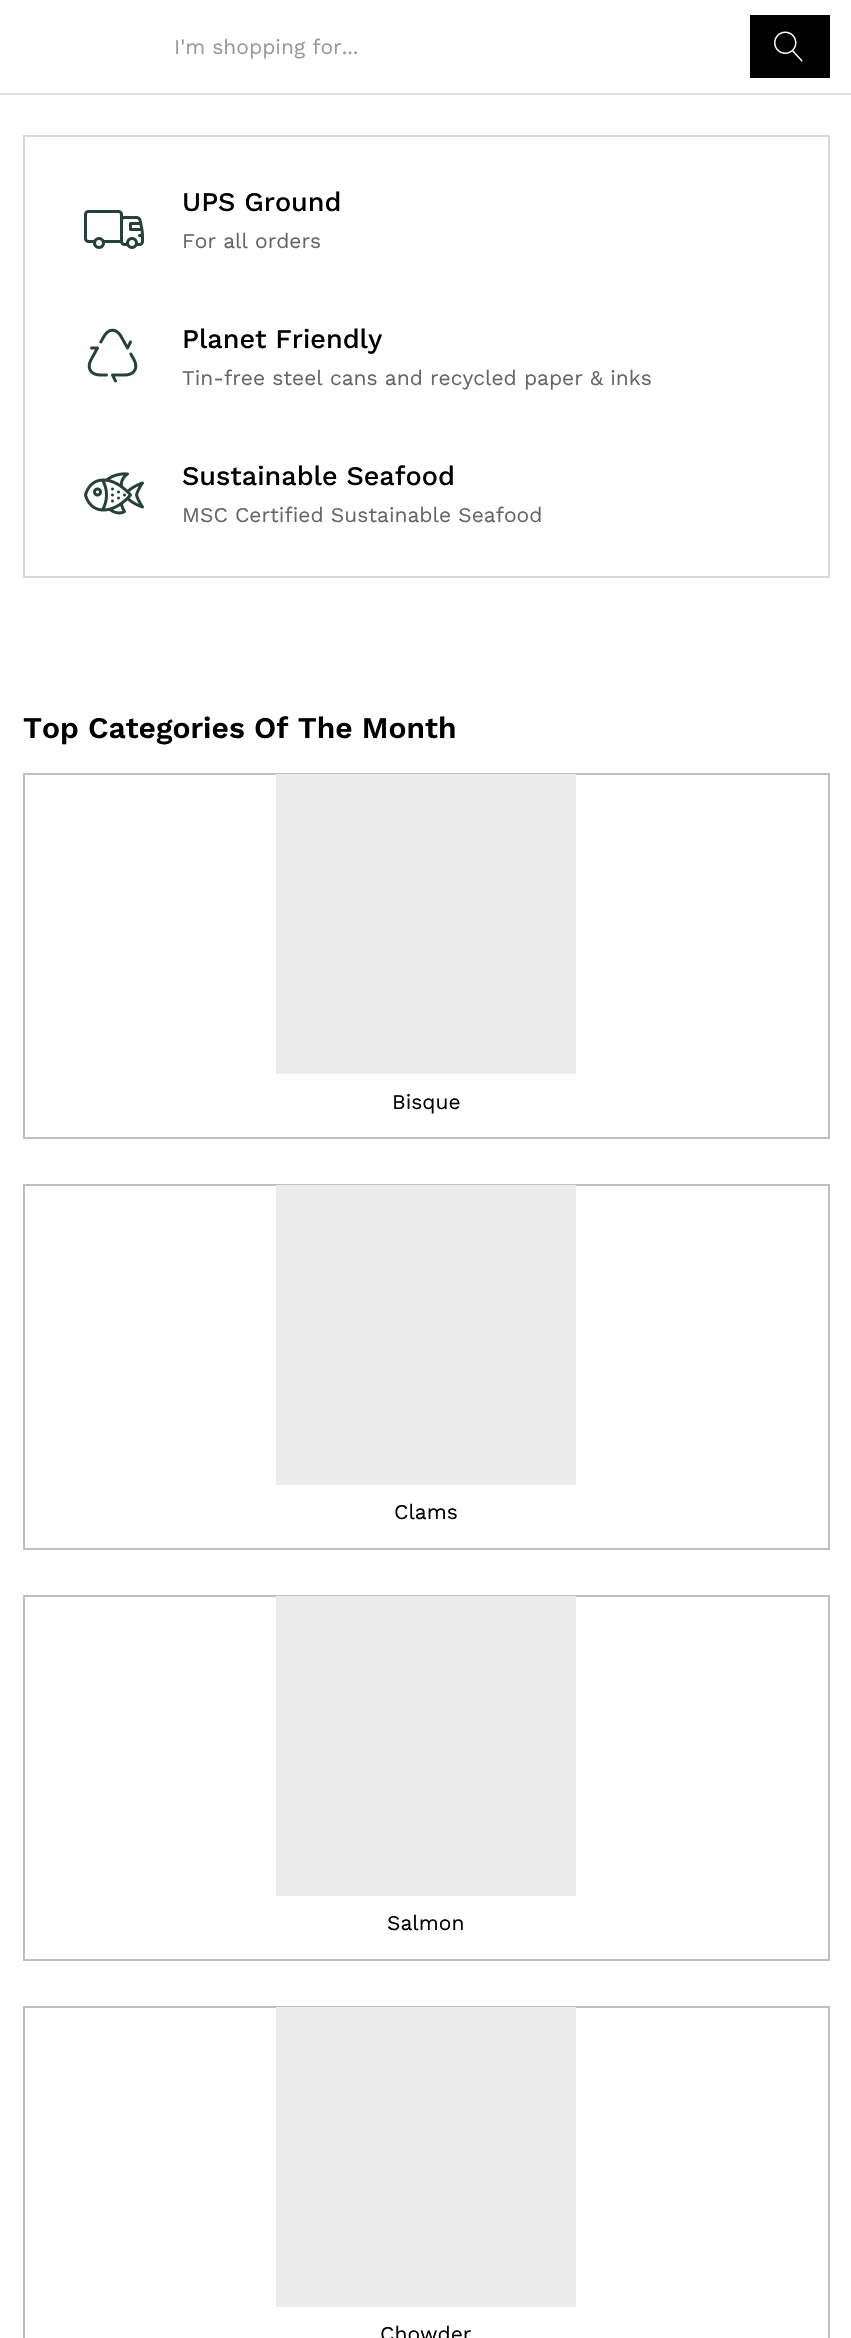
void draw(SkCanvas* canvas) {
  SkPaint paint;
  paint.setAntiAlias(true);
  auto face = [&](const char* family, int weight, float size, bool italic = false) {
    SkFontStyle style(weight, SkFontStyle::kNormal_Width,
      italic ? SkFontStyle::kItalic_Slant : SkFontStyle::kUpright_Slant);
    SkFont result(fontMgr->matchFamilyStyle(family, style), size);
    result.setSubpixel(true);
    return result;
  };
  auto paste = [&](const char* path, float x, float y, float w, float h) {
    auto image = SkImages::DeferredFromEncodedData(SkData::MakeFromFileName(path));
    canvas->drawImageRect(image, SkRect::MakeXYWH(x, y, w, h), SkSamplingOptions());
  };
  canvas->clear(0xffffffff);
  paint.setColor(0xffe1e1e1);
  canvas->drawRect(SkRect::MakeXYWH(0, 93, 851, 2), paint);
  paint.setColor(0xff000000);
  canvas->drawRect(SkRect::MakeXYWH(750, 15, 80, 63), paint);
  paste("img/1.png", 774, 31, 29, 31);
  paint.setStroke(true);
  paint.setStrokeWidth(2);
  paint.setColor(0xffd9d9d9);
  canvas->drawRect(SkRect::MakeXYWH(24, 136, 805, 441), paint);
  paste("img/2.png", 84, 210, 60, 39);
  paste("img/3.png", 87, 328, 51, 55);
  paste("img/4.png", 84, 472, 60, 43);
  paint.setColor(0xffbfbfbf);
  canvas->drawRect(SkRect::MakeXYWH(24, 774, 805, 364), paint);
  paint.setStroke(false);
  paint.setColor(0xffececec);
  canvas->drawRect(SkRect::MakeXYWH(276, 774, 300, 300), paint);
  paint.setStroke(true);
  paint.setColor(0xffbfbfbf);
  canvas->drawRect(SkRect::MakeXYWH(24, 1185, 805, 364), paint);
  paint.setStroke(false);
  paint.setColor(0xffececec);
  canvas->drawRect(SkRect::MakeXYWH(276, 1185, 300, 300), paint);
  paint.setStroke(true);
  paint.setColor(0xffbfbfbf);
  canvas->drawRect(SkRect::MakeXYWH(24, 1596, 805, 364), paint);
  paint.setStroke(false);
  paint.setColor(0xffececec);
  canvas->drawRect(SkRect::MakeXYWH(276, 1596, 300, 300), paint);
  paint.setStroke(true);
  paint.setColor(0xffbfbfbf);
  canvas->drawRect(SkRect::MakeXYWH(24, 2007, 805, 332), paint);
  paint.setStroke(false);
  paint.setColor(0xffececec);
  canvas->drawRect(SkRect::MakeXYWH(276, 2007, 300, 300), paint);
  auto f0 = face("Work Sans", 400, 21);
  paint.setColor(0xff999999);
  canvas->drawString("I'm shopping for...", 174, 54, f0, paint);
  auto f1 = face("Work Sans", 500, 27);
  paint.setColor(0xff000000);
  canvas->drawString("UPS Ground", 182, 211, f1, paint);
  paint.setColor(0xff666666);
  canvas->drawString("For all orders", 182, 248, f0, paint);
  paint.setColor(0xff000000);
  canvas->drawString("Planet Friendly", 182, 348, f1, paint);
  paint.setColor(0xff666666);
  canvas->drawString("Tin-free steel cans and recycled paper & inks", 182, 385, f0, paint);
  paint.setColor(0xff000000);
  canvas->drawString("Sustainable Seafood", 182, 485, f1, paint);
  paint.setColor(0xff666666);
  canvas->drawString("MSC Certified Sustainable Seafood", 182, 522, f0, paint);
  auto f2 = face("Work Sans", 600, 30);
  paint.setColor(0xff000000);
  canvas->drawString("Top Categories Of The Month", 23, 738, f2, paint);
  {
    const struct { const char* s; float x, y; } items[] = {
      {"Bisque", 392, 1109},
      {"Clams", 394, 1519},
      {"Salmon", 387, 1930},
      {"Chowder", 380, 2341},
    };
    for (auto [s, x, y] : items) {
      canvas->drawString(s, x, y, f0, paint);
    }
  }
}
